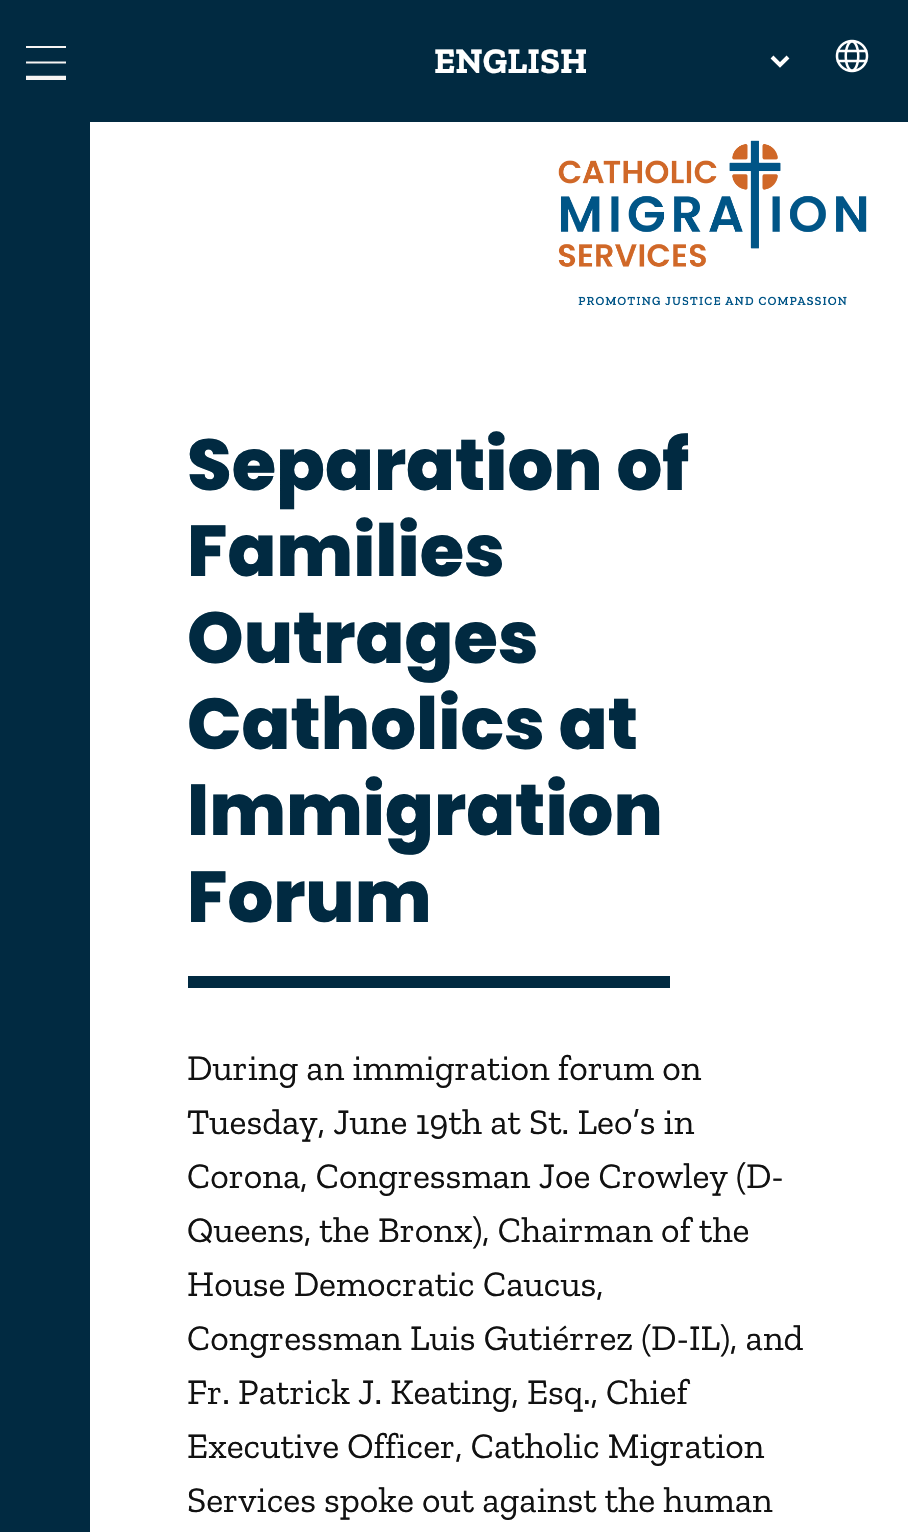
void draw(SkCanvas* canvas) {
  SkPaint paint;
  paint.setAntiAlias(true);
  auto face = [&](const char* family, int weight, float size, bool italic = false) {
    SkFontStyle style(weight, SkFontStyle::kNormal_Width,
      italic ? SkFontStyle::kItalic_Slant : SkFontStyle::kUpright_Slant);
    SkFont result(fontMgr->matchFamilyStyle(family, style), size);
    result.setSubpixel(true);
    return result;
  };
  auto paste = [&](const char* path, float x, float y, float w, float h) {
    auto image = SkImages::DeferredFromEncodedData(SkData::MakeFromFileName(path));
    canvas->drawImageRect(image, SkRect::MakeXYWH(x, y, w, h), SkSamplingOptions());
  };
  auto shape = [&](const char* data, bool evenOdd = false) {
    SkPath result = *SkParsePath::FromSVGString(data);
    if (evenOdd) result.setFillType(SkPathFillType::kEvenOdd);
    return result;
  };
  canvas->clear(0xffffffff);
  paint.setColor(0xff012a41);
  canvas->drawRect(SkRect::MakeXYWH(90, 0, 818, 122), paint);
  paint.setStroke(true);
  paint.setStrokeWidth(4);
  paint.setColor(0xffffffff);
  canvas->drawPath(shape("M772 57L780 65L788 57"), paint);
  paste("img/1.png", 835, 39, 34, 34);
  paste("img/2.png", 558, 140, 309, 165);
  paint.setStroke(false);
  paint.setColor(0xff012a41);
  canvas->drawRect(SkRect::MakeXYWH(0, 0, 90, 1532), paint);
  paint.setColor(0xfff6f4f3);
  canvas->drawRect(SkRect::MakeXYWH(26, 46, 40, 2), paint);
  paint.setStroke(true);
  paint.setStrokeWidth(2.2f);
  canvas->drawPath(shape("M26 62.5H66"), paint);
  canvas->save();
  canvas->clipRect(SkRect::MakeXYWH(26, 46, 40, 34));
  paint.setStrokeWidth(4.5f);
  canvas->drawPath(shape("M26 78H66"), paint);
  canvas->restore();
  paint.setStroke(false);
  paint.setColor(0xff012a41);
  canvas->drawRect(SkRect::MakeXYWH(188, 976, 482, 12), paint);
  auto f0 = face("Zilla Slab", 700, 36);
  paint.setColor(0xffffffff);
  canvas->drawString("ENGLISH", 434, 73, f0, paint);
  auto f1 = face("Poppins", 800, 72);
  paint.setColor(0xff012a41);
  {
    const struct { const char* s; float x, y; } items[] = {
      {"Separation of", 187, 490},
      {"Families", 187, 576},
      {"Outrages", 187, 663},
      {"Catholics at", 187, 749},
      {"Immigration", 187, 835},
      {"Forum", 187, 922},
    };
    for (auto [s, x, y] : items) {
      canvas->drawString(s, x, y, f1, paint);
    }
  }
  auto f2 = face("Zilla Slab", 400, 36);
  paint.setColor(0xff111111);
  {
    const struct { const char* s; float x, y; } items[] = {
      {"During an immigration forum on", 187, 1080},
      {"Tuesday, June 19th at St. Leo’s in", 187, 1134},
      {"Corona, Congressman Joe Crowley (D-", 187, 1188},
      {"Queens, the Bronx), Chairman of the", 187, 1242},
      {"House Democratic Caucus,", 187, 1296},
      {"Congressman Luis Gutiérrez (D-IL), and", 187, 1350},
      {"Fr. Patrick J. Keating, Esq., Chief", 187, 1404},
      {"Executive Officer, Catholic Migration", 187, 1458},
      {"Services spoke out against the human", 187, 1512},
    };
    for (auto [s, x, y] : items) {
      canvas->drawString(s, x, y, f2, paint);
    }
  }
}
